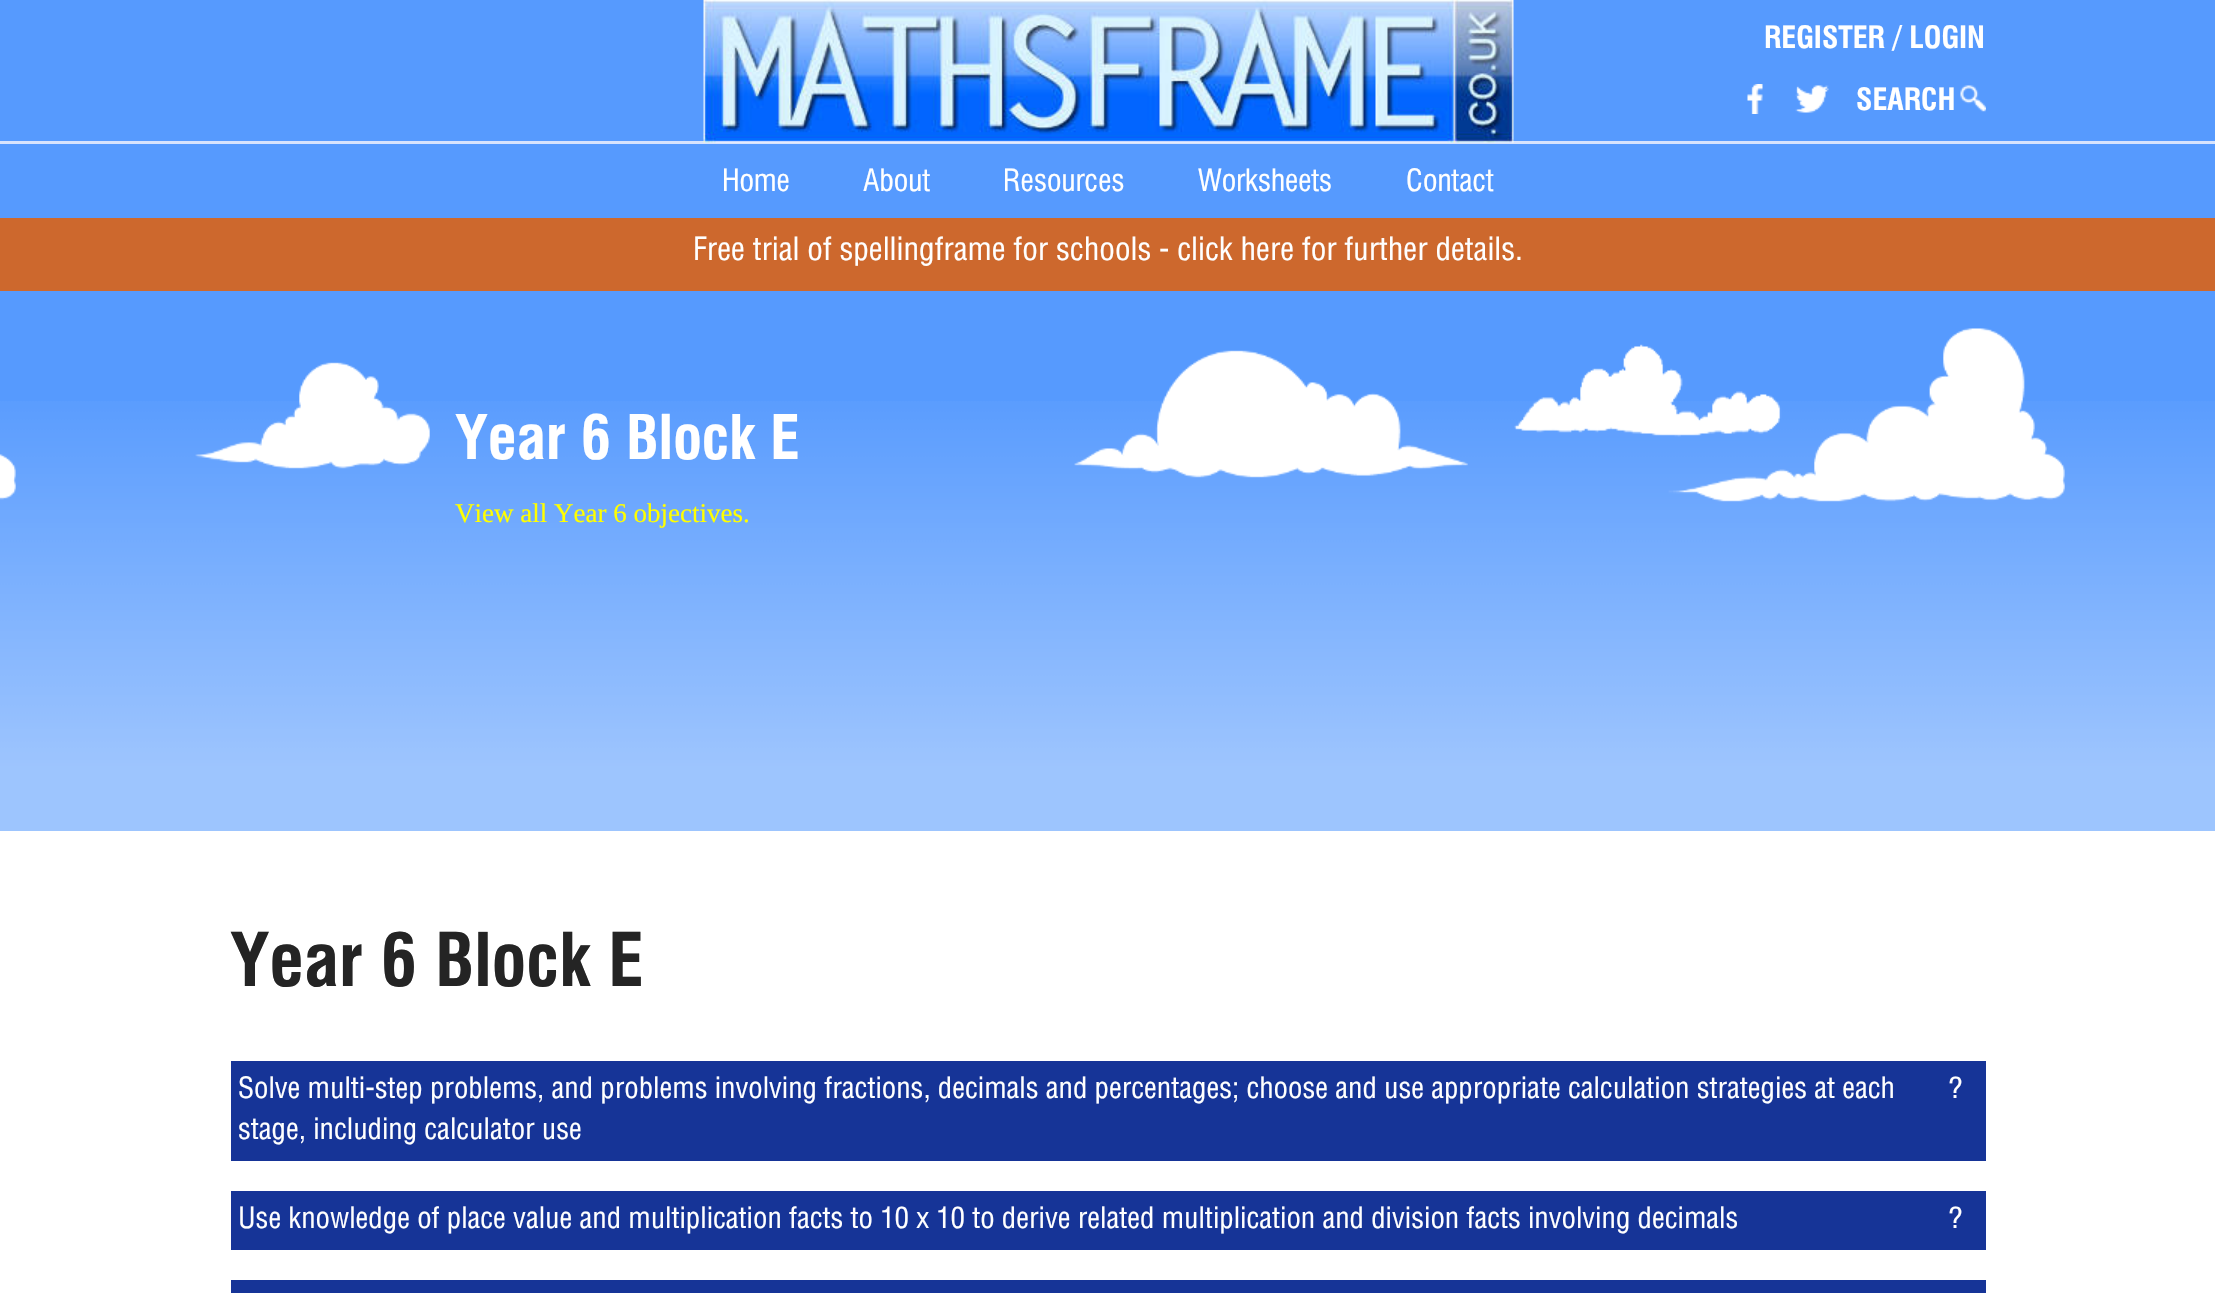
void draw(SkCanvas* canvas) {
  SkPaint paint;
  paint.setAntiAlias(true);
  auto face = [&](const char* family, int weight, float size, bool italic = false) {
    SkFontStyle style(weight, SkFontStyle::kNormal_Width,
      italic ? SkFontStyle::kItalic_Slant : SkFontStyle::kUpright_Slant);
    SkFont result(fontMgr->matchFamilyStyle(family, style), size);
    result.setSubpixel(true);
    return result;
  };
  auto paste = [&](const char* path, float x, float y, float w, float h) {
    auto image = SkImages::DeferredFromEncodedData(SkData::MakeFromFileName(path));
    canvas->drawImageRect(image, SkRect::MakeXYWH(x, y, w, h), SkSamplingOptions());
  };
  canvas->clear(0xffffffff);
  paint.setColor(0xff569afe);
  canvas->drawRect(SkRect::MakeXYWH(0, 0, 2215, 141), paint);
  paint.setColor(0xffd7e3fd);
  canvas->drawRect(SkRect::MakeXYWH(0, 141, 2215, 3), paint);
  paste("img/1.png", 703, 0, 811, 143);
  paste("img/2.png", 1747, 84, 16, 30);
  paste("img/3.png", 1795, 85, 34, 28);
  paste("img/4.png", 1960, 85, 26, 27);
  {
    const struct { float x, y, w, h; SkColor color; } items[] = {
      {0, 144, 2215, 74, 0xff569afe},
      {0, 218, 2215, 73, 0xffcd682d},
      {0, 291, 2215, 540, 0xff569afe},
    };
    for (auto [x, y, w, h, color] : items) {
      paint.setColor(color);
      canvas->drawRect(SkRect::MakeXYWH(x, y, w, h), paint);
    }
  }
  paste("img/5.png", 0, 401, 2215, 430);
  paste("img/6.png", 0, 328, 2065, 174);
  {
    const struct { float x, y, w, h; SkColor color; } items[] = {
      {231, 1061, 1755, 100, 0xff163497},
      {231, 1191, 1755, 59, 0xff163497},
      {231, 1280, 1755, 13, 0xff163497},
    };
    for (auto [x, y, w, h, color] : items) {
      paint.setColor(color);
      canvas->drawRect(SkRect::MakeXYWH(x, y, w, h), paint);
    }
  }
  auto f0 = face("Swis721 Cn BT", 700, 30);
  paint.setColor(0xffffffff);
  canvas->drawString("REGISTER / LOGIN", 1764, 48, f0, paint);
  canvas->drawString("SEARCH", 1856, 110, f0, paint);
  auto f1 = face("Swis721 Cn BT", 400, 30);
  {
    const struct { const char* s; float x, y; } items[] = {
      {"Home", 722, 191},
      {"About", 863, 191},
      {"Resources", 1003, 191},
      {"Worksheets", 1198, 191},
      {"Contact", 1406, 191},
    };
    for (auto [s, x, y] : items) {
      canvas->drawString(s, x, y, f1, paint);
    }
  }
  auto f2 = face("Helvetica", 400, 31.2f);
  canvas->drawString("Free trial of spellingframe for schools - click here for further details.", 693, 260, f2, paint);
  auto f3 = face("Swis721 Cn BT", 700, 60);
  canvas->drawString("Year 6 Block E", 455, 459, f3, paint);
  auto f4 = face("Liberation Serif", 400, 27);
  paint.setColor(0xffffff00);
  canvas->drawString("View all Year 6 objectives.", 455, 522, f4, paint);
  auto f5 = face("Swis721 Cn BT", 700, 72);
  paint.setColor(0xff242424);
  canvas->drawString("Year 6 Block E", 230, 986, f5, paint);
  auto f6 = face("Helvetica", 400, 28.8f);
  paint.setColor(0xffffffff);
  {
    const struct { const char* s; float x, y; } items[] = {
      {"Solve multi-step problems, and problems involving fractions, decimals and percentages; choose and use appropriate calculation strategies at each", 238, 1098},
      {"stage, including calculator use", 238, 1139},
      {"?", 1948, 1098},
      {"Use knowledge of place value and multiplication facts to 10 x 10 to derive related multiplication and division facts involving decimals", 238, 1228},
      {"?", 1948, 1228},
    };
    for (auto [s, x, y] : items) {
      canvas->drawString(s, x, y, f6, paint);
    }
  }
}
